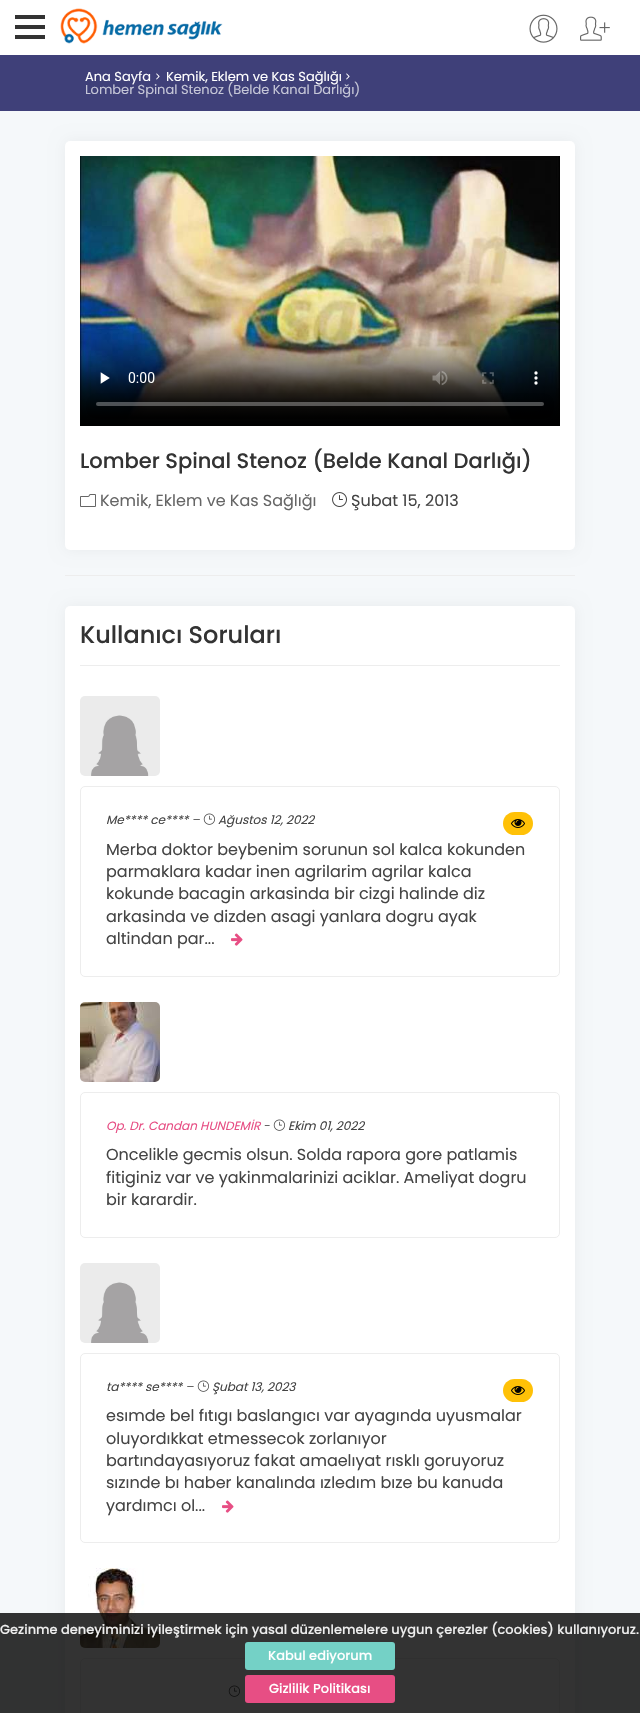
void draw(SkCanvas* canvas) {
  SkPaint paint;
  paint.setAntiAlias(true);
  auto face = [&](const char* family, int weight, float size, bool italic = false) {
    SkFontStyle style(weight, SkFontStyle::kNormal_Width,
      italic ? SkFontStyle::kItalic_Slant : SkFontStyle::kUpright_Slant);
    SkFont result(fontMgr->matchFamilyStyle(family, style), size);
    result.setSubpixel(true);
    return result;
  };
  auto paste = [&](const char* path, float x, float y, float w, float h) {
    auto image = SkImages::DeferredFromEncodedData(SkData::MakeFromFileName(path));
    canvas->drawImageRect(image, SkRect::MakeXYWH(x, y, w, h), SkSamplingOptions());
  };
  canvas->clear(0xffffffff);
  {
    const struct { float x, y, w, h; SkColor color; } items[] = {
      {15, 25, 30, 4, 0xff333333},
      {15, 15, 30, 4, 0xff333333},
      {15, 35, 30, 4, 0xff333333},
    };
    for (auto [x, y, w, h, color] : items) {
      paint.setColor(color);
      canvas->drawRect(SkRect::MakeXYWH(x, y, w, h), paint);
    }
  }
  paste("img/1.png", 60, 8, 163, 36);
  paste("img/2.png", 529, 14, 29, 29);
  paste("img/3.png", 580, 16, 30, 25);
  paint.setColor(0xfff5f8fa);
  canvas->drawRect(SkRect::MakeXYWH(0, 111, 640, 1602), paint);
  paint.setColor(0xff3f4079);
  canvas->drawRect(SkRect::MakeXYWH(0, 55, 640, 56), paint);
  paste("img/4.png", 156, 73, 4, 7);
  paste("img/4.png", 346, 73, 4, 7);
  paint.setColor(0x0d000000);
  paint.setMaskFilter(SkMaskFilter::MakeBlur(kNormal_SkBlurStyle, 7.5f));
  canvas->drawRoundRect(SkRect::MakeXYWH(65, 141, 510, 409), 5, 5, paint);
  paint.setMaskFilter(nullptr);
  paint.setColor(0xffffffff);
  canvas->drawRoundRect(SkRect::MakeXYWH(65, 141, 510, 409), 5, 5, paint);
  paste("img/5.png", 80, 156, 480, 270);
  paste("img/6.png", 80, 494, 16, 13);
  paste("img/7.png", 332, 492, 15, 15);
  paint.setColor(0xffededed);
  canvas->drawRect(SkRect::MakeXYWH(65, 575, 510, 1), paint);
  paint.setColor(0x0d000000);
  paint.setMaskFilter(SkMaskFilter::MakeBlur(kNormal_SkBlurStyle, 7.5f));
  canvas->drawRoundRect(SkRect::MakeXYWH(65, 606, 510, 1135), 5, 5, paint);
  paint.setMaskFilter(nullptr);
  paint.setColor(0xffffffff);
  canvas->drawRoundRect(SkRect::MakeXYWH(65, 606, 510, 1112), 5, 5, paint);
  paint.setColor(0xffededed);
  canvas->drawRect(SkRect::MakeXYWH(80, 665, 480, 1), paint);
  paste("img/8.png", 80, 696, 80, 80);
  paint.setStroke(true);
  paint.setStrokeWidth(1);
  canvas->drawRoundRect(SkRect::MakeXYWH(80.5f, 786.5f, 479, 190), 4.5f, 4.5f, paint);
  paste("img/9.png", 203, 813, 12, 12);
  paint.setStroke(false);
  paint.setColor(0xffffc107);
  canvas->drawRoundRect(SkRect::MakeXYWH(503, 812, 30, 23), 11.5f, 11.5f, paint);
  paste("img/10.png", 511, 819, 14, 9);
  paste("img/11.png", 231, 933, 12, 13);
  paste("img/12.png", 80, 1002, 80, 80);
  paint.setStroke(true);
  paint.setColor(0xffededed);
  canvas->drawRoundRect(SkRect::MakeXYWH(80.5f, 1092.5f, 479, 145), 4.5f, 4.5f, paint);
  paste("img/9.png", 273, 1119, 12, 12);
  paste("img/8.png", 80, 1263, 80, 80);
  canvas->drawRoundRect(SkRect::MakeXYWH(80.5f, 1353.5f, 479, 189), 4.5f, 4.5f, paint);
  paste("img/9.png", 197, 1380, 12, 12);
  paint.setStroke(false);
  paint.setColor(0xffffc107);
  canvas->drawRoundRect(SkRect::MakeXYWH(503, 1379, 30, 23), 11.5f, 11.5f, paint);
  paste("img/10.png", 511, 1386, 14, 9);
  paste("img/11.png", 222, 1500, 12, 13);
  paste("img/13.png", 80, 1568, 80, 80);
  paint.setStroke(true);
  paint.setColor(0xffededed);
  canvas->drawRoundRect(SkRect::MakeXYWH(80.5f, 1658.5f, 479, 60), 4.5f, 4.5f, paint);
  paste("img/9.png", 228, 1685, 12, 12);
  paint.setStroke(false);
  paint.setColor(0xcc000000);
  canvas->drawRect(SkRect::MakeXYWH(0, 1613, 640, 100), paint);
  paint.setColor(0xff74d1c6);
  canvas->drawRoundRect(SkRect::MakeXYWH(245, 1642, 150, 28), 3, 3, paint);
  paint.setColor(0xffe74e84);
  canvas->drawRoundRect(SkRect::MakeXYWH(245, 1675, 150, 28), 3, 3, paint);
  auto f0 = face("Poppins", 400, 13);
  paint.setColor(0xffffffff);
  canvas->drawString("Ana Sayfa", 85, 81, f0, paint);
  canvas->drawString("Kemik, Eklem ve Kas Sağlığı", 166, 81, f0, paint);
  paint.setColor(0xffc5c6d7);
  canvas->drawString("Lomber Spinal Stenoz (Belde Kanal Darlığı)", 85, 94, f0, paint);
  auto f1 = face("Poppins", 500, 21);
  paint.setColor(0xff333333);
  canvas->drawString("Lomber Spinal Stenoz (Belde Kanal Darlığı)", 80, 468, f1, paint);
  auto f2 = face("Poppins", 400, 16);
  paint.setColor(0xff666666);
  canvas->drawString("Kemik, Eklem ve Kas Sağlığı", 100, 506, f2, paint);
  paint.setColor(0xff444444);
  canvas->drawString("Şubat 15, 2013", 351, 506, f2, paint);
  auto f3 = face("Poppins", 500, 24);
  paint.setColor(0xff333333);
  canvas->drawString("Kullanıcı Soruları", 80, 643, f3, paint);
  auto f4 = face("Poppins", 400, 12, true);
  paint.setColor(0xff444444);
  canvas->drawString("Me**** ce**** –", 106, 824, f4, paint);
  canvas->drawString("Ağustos 12, 2022", 218, 824, f4, paint);
  {
    const struct { const char* s; float x, y; } items[] = {
      {"Merba doktor beybenim sorunun sol kalca kokunden", 106, 855},
      {"parmaklara kadar inen agrilarim agrilar kalca", 106, 877},
      {"kokunde bacagin arkasinda bir cizgi halinde diz", 106, 899},
      {"arkasinda ve dizden asagi yanlara dogru ayak", 106, 922},
      {"altindan par...", 106, 944},
    };
    for (auto [s, x, y] : items) {
      canvas->drawString(s, x, y, f2, paint);
    }
  }
  paint.setColor(0xffe74e84);
  canvas->drawString("Op. Dr. Candan HUNDEMİR", 106, 1130, f4, paint);
  paint.setColor(0xff444444);
  canvas->drawString("-", 263, 1130, f4, paint);
  canvas->drawString("Ekim 01, 2022", 288, 1130, f4, paint);
  {
    const struct { const char* s; float x, y; } items[] = {
      {"Oncelikle gecmis olsun. Solda rapora gore patlamis", 106, 1160},
      {"fitiginiz var ve yakinmalarinizi aciklar. Ameliyat dogru", 106, 1183},
      {"bir karardir.", 106, 1205},
    };
    for (auto [s, x, y] : items) {
      canvas->drawString(s, x, y, f2, paint);
    }
  }
  canvas->drawString("ta**** se**** –", 106, 1391, f4, paint);
  canvas->drawString("Şubat 13, 2023", 212, 1391, f4, paint);
  {
    const struct { const char* s; float x, y; } items[] = {
      {"esımde bel fıtıgı baslangıcı var ayagında uyusmalar", 106, 1421},
      {"oluyordıkkat etmessecok zorlanıyor", 106, 1444},
      {"bartındayasıyoruz fakat amaelıyat rısklı goruyoruz", 106, 1466},
      {"sızınde bı haber kanalında ızledım bıze bu kanuda", 106, 1488},
      {"yardımcı ol...", 106, 1511},
    };
    for (auto [s, x, y] : items) {
      canvas->drawString(s, x, y, f2, paint);
    }
  }
  auto f5 = face("Poppins", 500, 13);
  paint.setColor(0xffeeeeee);
  canvas->drawString("Gezinme deneyiminizi iyileştirmek için yasal düzenlemelere uygun çerezler (cookies) kullanıyoruz.", 0, 1634, f5, paint);
  paint.setColor(0xffffffff);
  canvas->drawString("Kabul ediyorum", 268, 1660, f5, paint);
  canvas->drawString("Gizlilik Politikası", 269, 1693, f5, paint);
}
